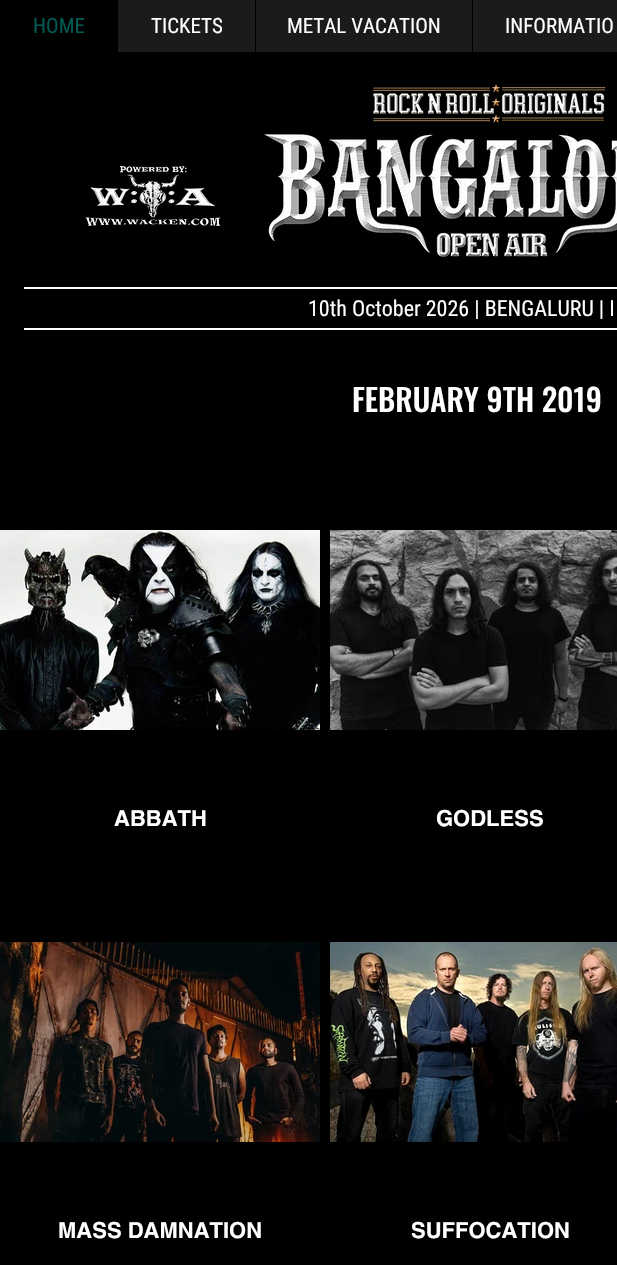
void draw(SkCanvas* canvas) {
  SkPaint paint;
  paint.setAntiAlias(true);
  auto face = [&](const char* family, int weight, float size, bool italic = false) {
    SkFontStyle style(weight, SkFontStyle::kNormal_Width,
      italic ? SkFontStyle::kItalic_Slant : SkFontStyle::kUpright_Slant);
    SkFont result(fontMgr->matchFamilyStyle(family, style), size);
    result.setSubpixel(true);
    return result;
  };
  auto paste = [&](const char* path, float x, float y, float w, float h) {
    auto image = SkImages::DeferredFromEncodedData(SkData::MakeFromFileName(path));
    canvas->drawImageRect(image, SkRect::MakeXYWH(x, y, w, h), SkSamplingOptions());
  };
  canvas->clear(0xff000000);
  {
    const struct { float x, y, w, h; SkColor color; } items[] = {
      {118, 0, 499, 52, 0xff1b1b1b},
      {255, 0, 1, 52, 0xff000000},
      {472, 0, 1, 52, 0xff000000},
    };
    for (auto [x, y, w, h, color] : items) {
      paint.setColor(color);
      canvas->drawRect(SkRect::MakeXYWH(x, y, w, h), paint);
    }
  }
  paste("img/1.png", 373, 84, 233, 39);
  paste("img/2.png", 85, 165, 136, 61);
  paste("img/3.png", 264, 134, 353, 123);
  paint.setColor(0xffffffff);
  canvas->drawRect(SkRect::MakeXYWH(24, 287, 593, 2), paint);
  canvas->drawRect(SkRect::MakeXYWH(24, 328, 593, 2), paint);
  paste("img/4.png", 0, 530, 320, 200);
  paste("img/5.png", 330, 530, 287, 200);
  paste("img/6.png", 0, 942, 320, 200);
  paste("img/7.png", 330, 942, 287, 200);
  auto f0 = face("Roboto Condensed", 400, 21);
  paint.setColor(0xff005a51);
  canvas->drawString("HOME", 33, 33, f0, paint);
  paint.setColor(0xffffffff);
  {
    const struct { const char* s; float x, y; } items[] = {
      {"TICKETS", 151, 33},
      {"METAL VACATION", 287, 33},
      {"INFORMATIO", 505, 33},
    };
    for (auto [s, x, y] : items) {
      canvas->drawString(s, x, y, f0, paint);
    }
  }
  auto f1 = face("Roboto Condensed", 400, 22);
  canvas->drawString("10th October 2026 | BENGALURU | I", 308, 316, f1, paint);
  auto f2 = face("Oswald", 500, 31);
  canvas->drawString("FEBRUARY 9TH 2019", 352, 412, f2, paint);
  auto f3 = face("helvetica", 700, 22);
  {
    const struct { const char* s; float x, y; } items[] = {
      {"ABBATH", 114, 826},
      {"GODLESS", 436, 826},
      {"MASS DAMNATION", 58, 1238},
      {"SUFFOCATION", 411, 1238},
    };
    for (auto [s, x, y] : items) {
      canvas->drawString(s, x, y, f3, paint);
    }
  }
}
